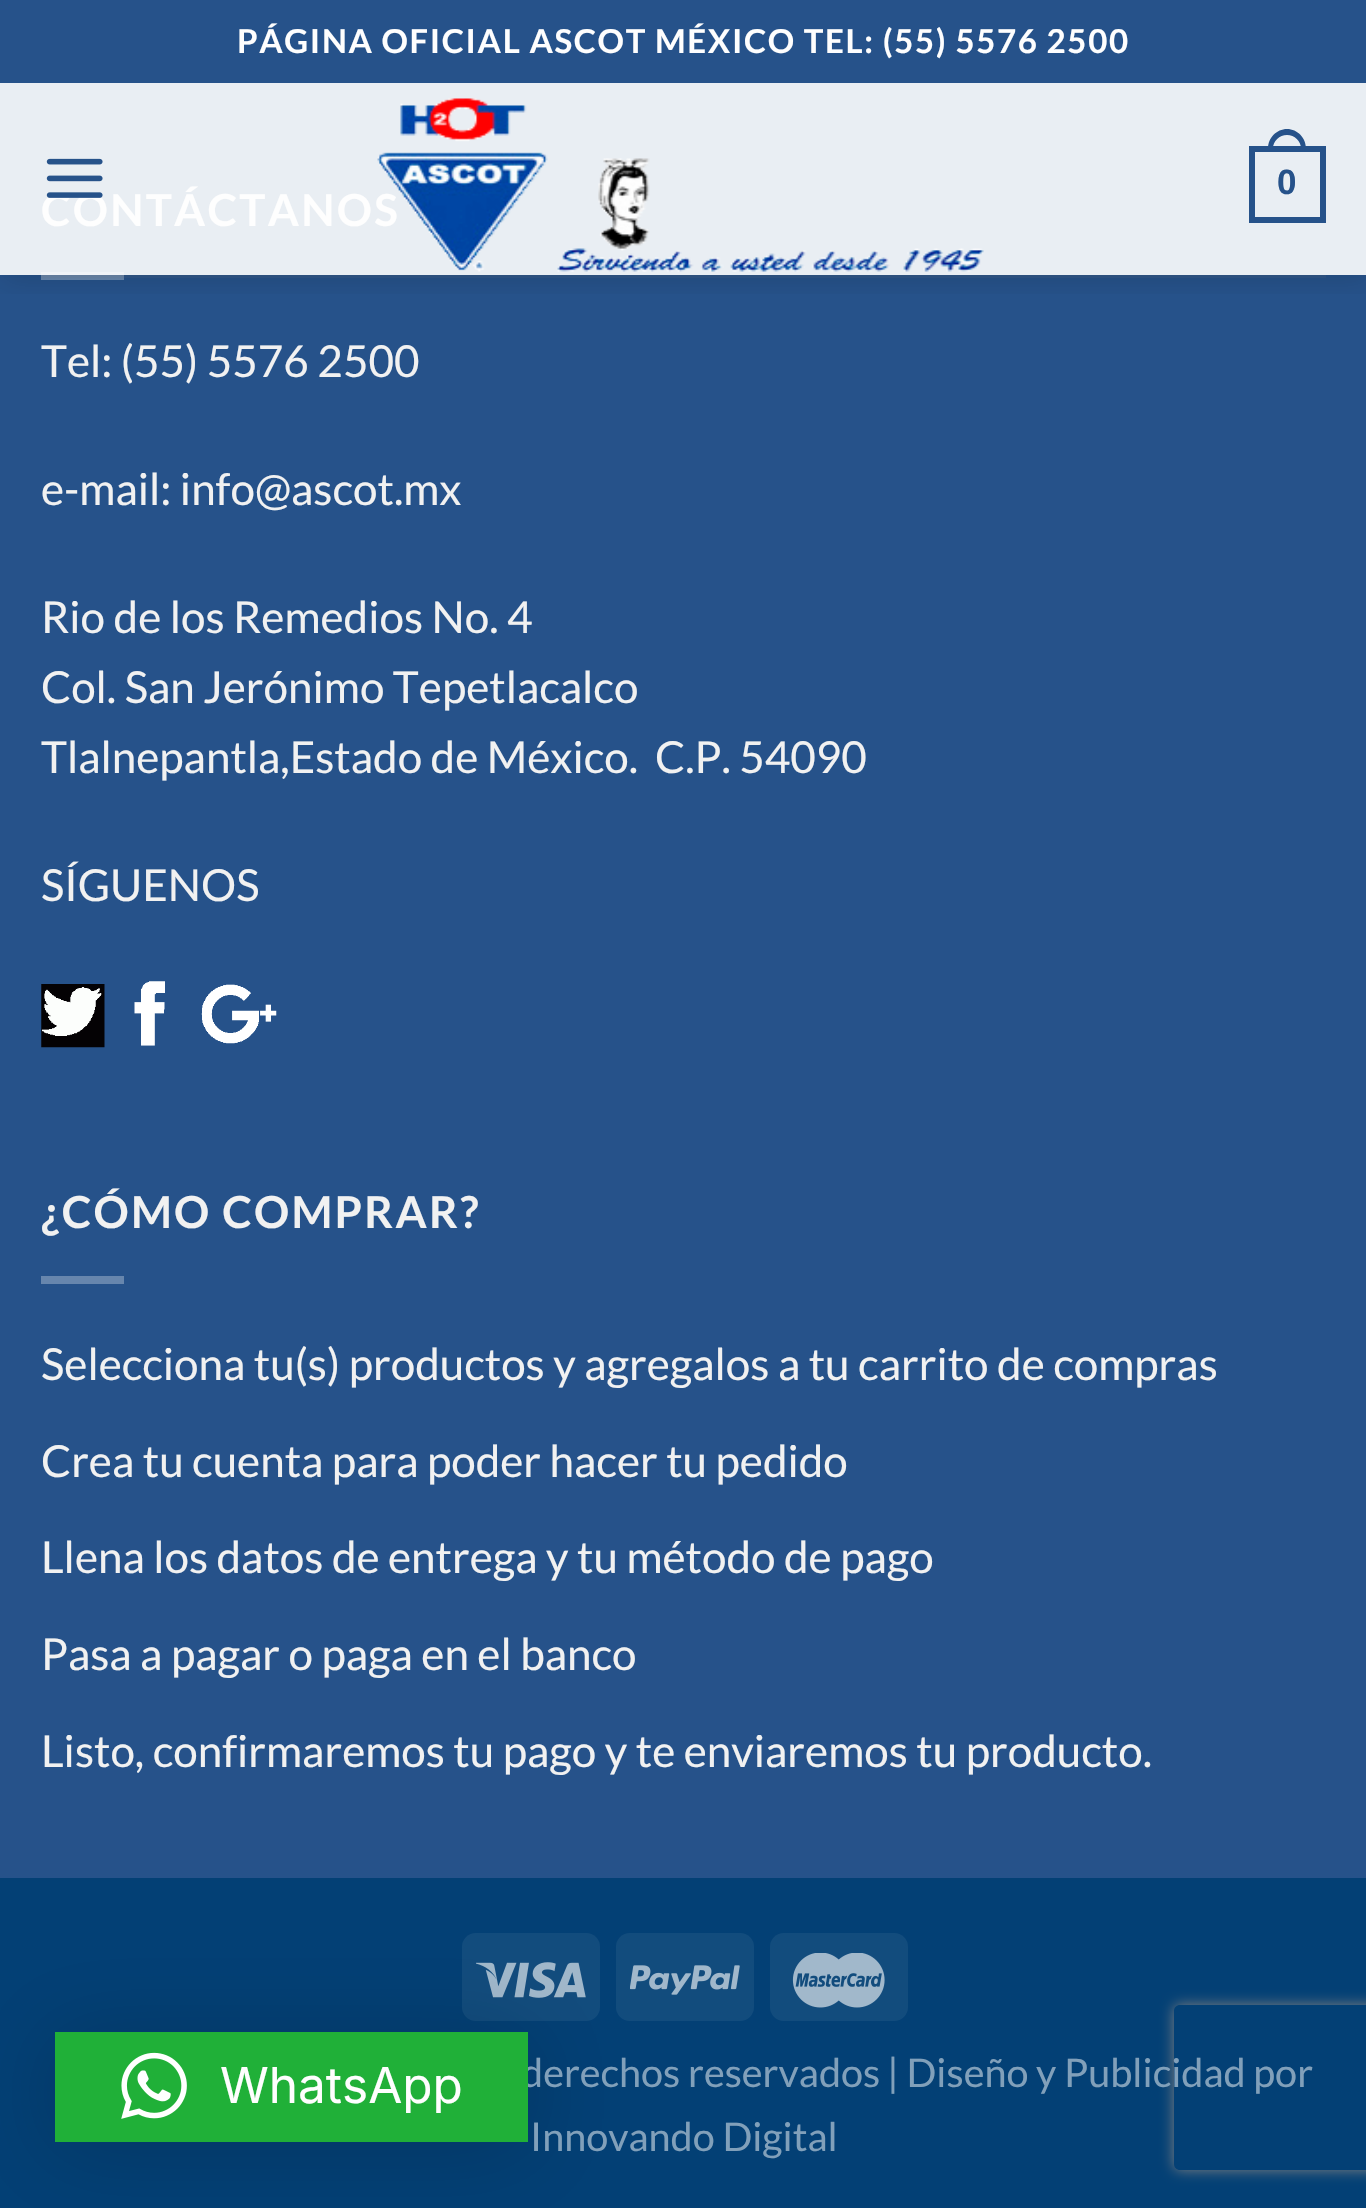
void draw(SkCanvas* canvas) {
  SkPaint paint;
  paint.setAntiAlias(true);
  auto face = [&](const char* family, int weight, float size, bool italic = false) {
    SkFontStyle style(weight, SkFontStyle::kNormal_Width,
      italic ? SkFontStyle::kItalic_Slant : SkFontStyle::kUpright_Slant);
    SkFont result(fontMgr->matchFamilyStyle(family, style), size);
    result.setSubpixel(true);
    return result;
  };
  auto writeSpaced = [&](const char* s, float x, float y, const SkFont& font, const SkPaint& ink, float letter, float word) {
    std::vector<SkGlyphID> glyphs(font.countText(s, strlen(s), SkTextEncoding::kUTF8));
    std::vector<float> xs(glyphs.size());
    font.textToGlyphs(s, strlen(s), SkTextEncoding::kUTF8, glyphs);
    font.getXPos(glyphs, xs, x);
    float extra = 0;
    for (size_t i = 0; i < glyphs.size(); i++) {
      xs[i] += extra;
      extra += letter + word * (glyphs[i] == font.unicharToGlyph(' '));
    }
    canvas->drawTextBlob(SkTextBlob::MakeFromPosHGlyphs(glyphs, xs, y, font), 0, 0, ink);
  };
  auto paste = [&](const char* path, float x, float y, float w, float h) {
    auto image = SkImages::DeferredFromEncodedData(SkData::MakeFromFileName(path));
    canvas->drawImageRect(image, SkRect::MakeXYWH(x, y, w, h), SkSamplingOptions());
  };
  auto shape = [&](const char* data, bool evenOdd = false) {
    SkPath result = *SkParsePath::FromSVGString(data);
    if (evenOdd) result.setFillType(SkPathFillType::kEvenOdd);
    return result;
  };
  canvas->clear(0xff26528a);
  {
    const struct { float x, y, w, h; SkColor color; } items[] = {
      {0, 83, 1366, 192, 0xffe9eef3},
      {41, 275, 83, 5, 0xff6786ad},
      {41, 272, 83, 3, 0xfff0f3f7},
    };
    for (auto [x, y, w, h, color] : items) {
      paint.setColor(color);
      canvas->drawRect(SkRect::MakeXYWH(x, y, w, h), paint);
    }
  }
  canvas->save();
  canvas->clipRect(SkRect::MakeXYWH(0, 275, 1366, 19));
  paint.setColor(0x26000000);
  paint.setMaskFilter(SkMaskFilter::MakeBlur(kNormal_SkBlurStyle, 14));
  canvas->drawRect(SkRect::MakeXYWH(3, 3, 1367, 275), paint);
  paint.setMaskFilter(nullptr);
  canvas->restore();
  paint.setStroke(true);
  paint.setStrokeWidth(6);
  paint.setColor(0xff26528a);
  canvas->drawRect(SkRect::MakeXYWH(1252, 149, 71, 71), paint);
  paint.setStroke(false);
  canvas->drawPath(shape("M1287 129C1297.5 129 1306 138 1306 148.5V151H1268V148.5C1268 138 1276.5 129 1287 129ZM1287 135C1294.5 135 1301 141 1301 148.5V151H1273V148.5C1273 141 1279.5 135 1287 135Z", true), paint);
  paint.setColor(0x1a777777);
  canvas->drawRect(SkRect::MakeXYWH(41, 275, 1285, 3), paint);
  paste("img/3.png", 41, 984, 64, 64);
  paste("img/4.png", 134, 981, 31, 65);
  paste("img/5.png", 201, 984, 76, 60);
  paint.setColor(0xff6786ad);
  canvas->drawRect(SkRect::MakeXYWH(41, 1276, 83, 8), paint);
  paint.setColor(0xff034075);
  canvas->drawRect(SkRect::MakeXYWH(0, 1878, 1366, 330), paint);
  paint.setColor(0xff124c7d);
  canvas->drawRoundRect(SkRect::MakeXYWH(462, 1933, 138, 88), 14, 14, paint);
  paste("img/6.png", 476, 1962, 110, 36);
  canvas->drawRoundRect(SkRect::MakeXYWH(616, 1933, 138, 88), 14, 14, paint);
  paste("img/7.png", 630, 1965, 110, 30);
  canvas->drawRoundRect(SkRect::MakeXYWH(770, 1933, 138, 88), 14, 14, paint);
  paste("img/8.png", 792, 1953, 93, 55);
  paint.setColor(0x29000000);
  paint.setMaskFilter(SkMaskFilter::MakeBlur(kNormal_SkBlurStyle, 44));
  canvas->drawRect(SkRect::MakeXYWH(55, 2038, 473, 110), paint);
  paint.setMaskFilter(nullptr);
  canvas->save();
  canvas->clipPath(shape("M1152 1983H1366V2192H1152ZM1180 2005H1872C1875.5 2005 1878 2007.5 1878 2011V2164C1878 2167.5 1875.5 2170 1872 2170H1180C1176.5 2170 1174 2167.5 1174 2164V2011C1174 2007.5 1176.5 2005 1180 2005Z", true), true);
  paint.setColor(0xff808080);
  paint.setMaskFilter(SkMaskFilter::MakeBlur(kNormal_SkBlurStyle, 7));
  canvas->drawRoundRect(SkRect::MakeXYWH(1174, 2005, 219, 165), 6, 6, paint);
  paint.setMaskFilter(nullptr);
  canvas->restore();
  auto f0 = face("Lato", 700, 33);
  paint.setColor(0xfffefefe);
  writeSpaced("PÁGINA OFICIAL ASCOT MÉXICO TEL: (55) 5576 2500", 237, 53, f0, paint, 1.65f, 0);
  auto f1 = face("Liberation Sans", 700, 35);
  paint.setColor(0xff26528a);
  canvas->drawString("0", 1277, 194, f1, paint);
  auto f2 = face("Lato", 700, 44);
  paint.setColor(0xfffefefe);
  writeSpaced("CONTÁCTANOS", 41, 226, f2, paint, 2.25f, 0);
  paste("img/1.png", 46, 158, 57, 40);
  paste("img/2.png", 377, 98, 607, 174);
  auto f3 = face("Lato", 400, 44);
  paint.setColor(0xfff1f1f1);
  {
    const struct { const char* s; float x, y; } items[] = {
      {"Tel: (55) 5576 2500", 41, 377},
      {"e-mail: info@ascot.mx", 41, 505},
      {"Rio de los Remedios No. 4", 41, 633},
      {"Col. San Jerónimo Tepetlacalco", 41, 703},
      {"Tlalnepantla,Estado de México.  C.P. 54090", 41, 773},
      {"SÍGUENOS", 41, 901},
    };
    for (auto [s, x, y] : items) {
      canvas->drawString(s, x, y, f3, paint);
    }
  }
  writeSpaced("¿CÓMO COMPRAR?", 41, 1228, f2, paint, 2.25f, 0);
  {
    const struct { const char* s; float x, y; } items[] = {
      {"Selecciona tu(s) productos y agregalos a tu carrito de compras", 41, 1380},
      {"Crea tu cuenta para poder hacer tu pedido", 41, 1477},
      {"Llena los datos de entrega y tu método de pago", 41, 1573},
      {"Pasa a pagar o paga en el banco", 41, 1670},
      {"Listo, confirmaremos tu pago y te enviaremos tu producto.", 41, 1767},
    };
    for (auto [s, x, y] : items) {
      canvas->drawString(s, x, y, f3, paint);
    }
  }
  auto f4 = face("Lato", 400, 39.6f);
  paint.setColor(0xff81a0ba);
  {
    const struct { const char* s; float x, y; } items[] = {
      {"derechos reservados", 521, 2087},
      {"| Diseño y Publicidad por", 887, 2087},
      {"Innovando Digital", 530, 2151},
    };
    for (auto [s, x, y] : items) {
      canvas->drawString(s, x, y, f4, paint);
    }
  }
  paint.setColor(0xff20b038);
  canvas->drawRect(SkRect::MakeXYWH(55, 2032, 473, 110), paint);
  paste("img/9.png", 121, 2052, 66, 67);
  auto f5 = face("Inter", 400, 49.5f);
  paint.setColor(0xfffefefe);
  canvas->drawString("WhatsApp", 220, 2103, f5, paint);
}
